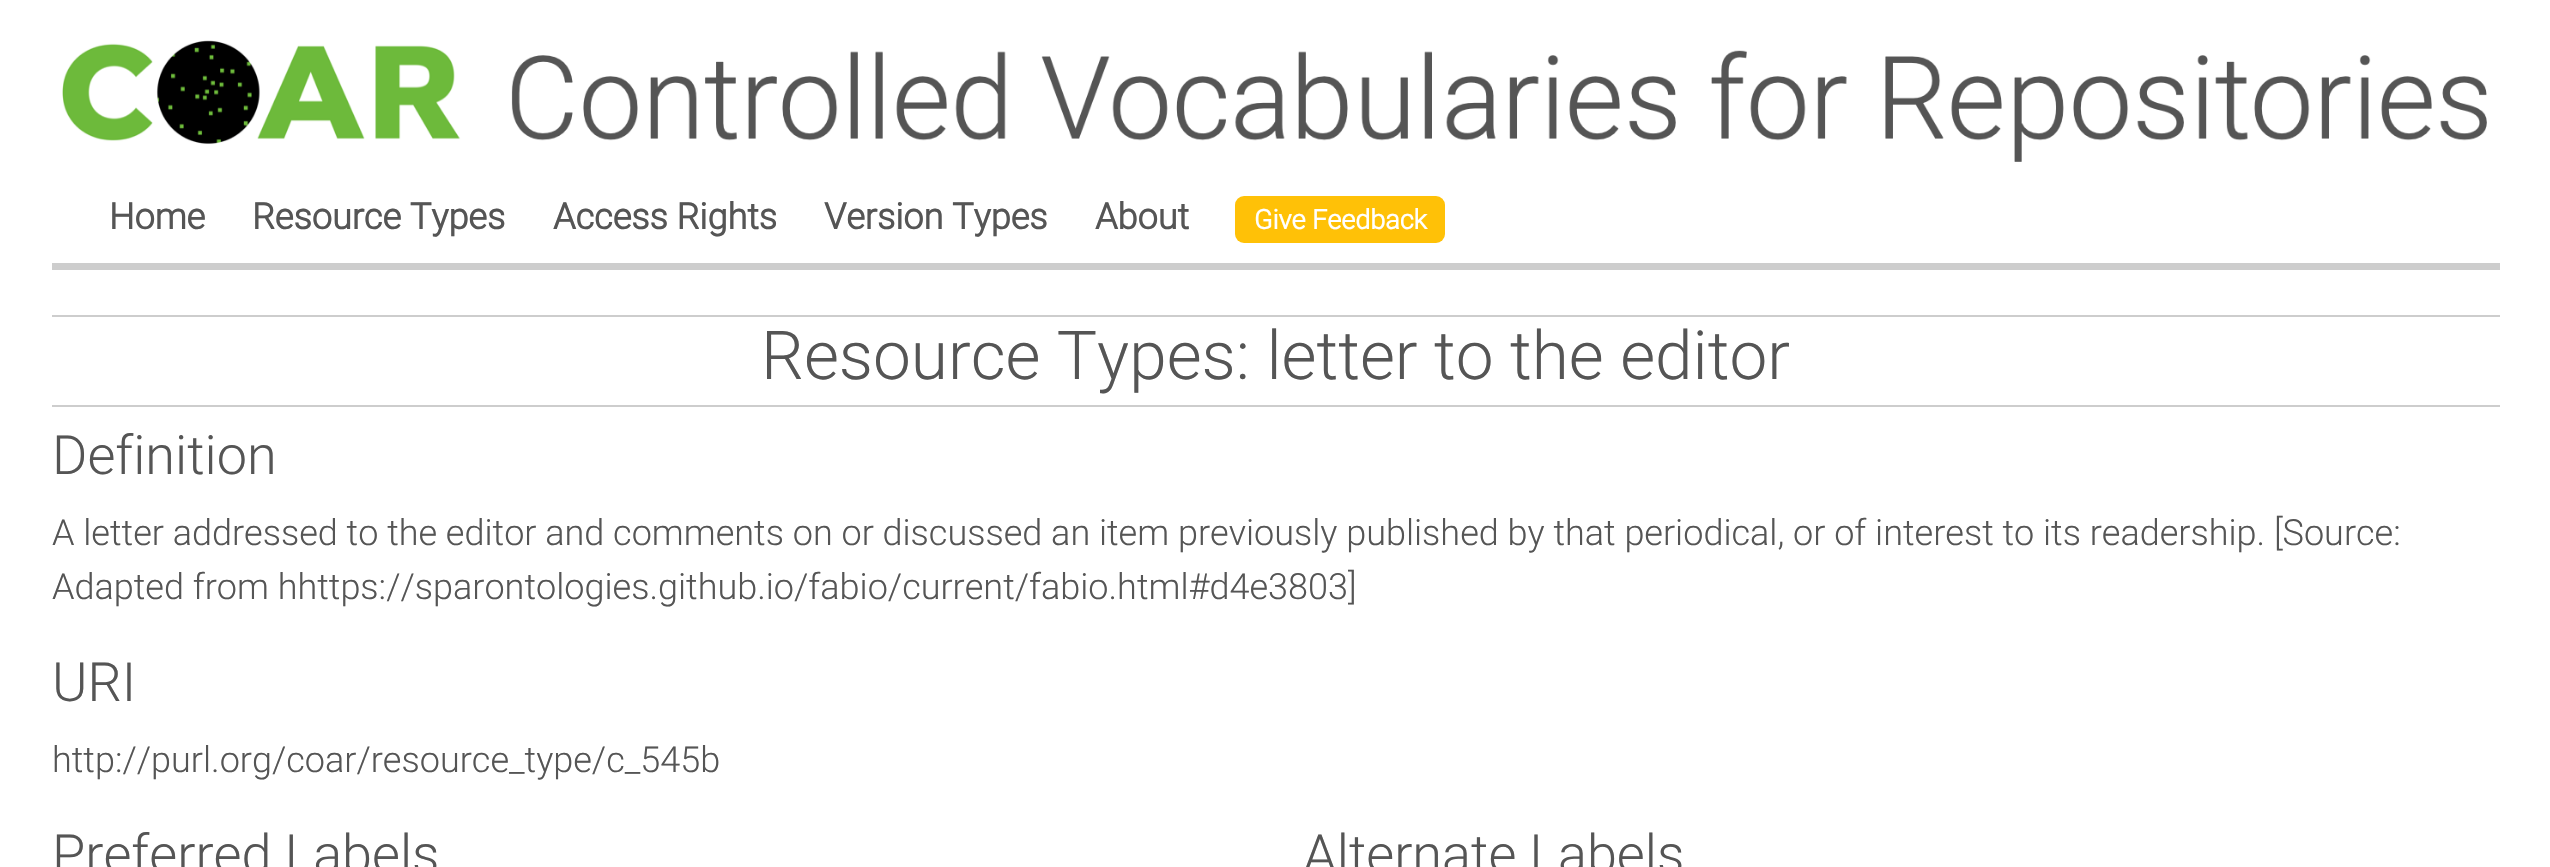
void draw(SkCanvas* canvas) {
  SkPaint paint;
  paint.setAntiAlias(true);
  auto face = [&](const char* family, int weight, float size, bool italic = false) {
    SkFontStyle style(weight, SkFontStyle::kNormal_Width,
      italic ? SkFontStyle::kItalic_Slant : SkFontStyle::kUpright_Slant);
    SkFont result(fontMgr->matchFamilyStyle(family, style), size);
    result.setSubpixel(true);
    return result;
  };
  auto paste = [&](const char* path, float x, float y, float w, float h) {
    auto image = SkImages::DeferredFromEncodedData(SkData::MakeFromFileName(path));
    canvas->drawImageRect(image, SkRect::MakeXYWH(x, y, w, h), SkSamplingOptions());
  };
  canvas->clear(0xffffffff);
  paste("img/1.png", 62, 40, 2425, 122);
  paint.setColor(0xffcdcdcd);
  canvas->drawRect(SkRect::MakeXYWH(52, 263, 2448, 7), paint);
  paint.setColor(0xffffc107);
  canvas->drawRoundRect(SkRect::MakeXYWH(1235, 196, 210, 47), 9, 9, paint);
  paint.setColor(0xffcdcdcd);
  canvas->drawRect(SkRect::MakeXYWH(52, 315, 2448, 2), paint);
  canvas->drawRect(SkRect::MakeXYWH(52, 405, 2448, 2), paint);
  auto f0 = face("Roboto", 700, 36);
  paint.setColor(0xff555555);
  {
    const struct { const char* s; float x, y; } items[] = {
      {"Home", 109, 229},
      {"Resource Types", 252, 229},
      {"Access Rights", 553, 229},
      {"Version Types", 824, 229},
      {"About", 1095, 229},
    };
    for (auto [s, x, y] : items) {
      canvas->drawString(s, x, y, f0, paint);
    }
  }
  auto f1 = face("Roboto", 700, 27);
  paint.setColor(0xffffffff);
  canvas->drawString("Give Feedback", 1254, 229, f1, paint);
  auto f2 = face("Roboto", 300, 67.5f);
  paint.setColor(0xff555555);
  canvas->drawString("Resource Types: letter to the editor", 761, 379, f2, paint);
  auto f3 = face("Roboto", 300, 54);
  canvas->drawString("Definition", 52, 474, f3, paint);
  auto f4 = face("Roboto", 300, 36);
  canvas->drawString("A letter addressed to the editor and comments on or discussed an item previously published by that periodical, or of interest to its readership. [Source:", 52, 545, f4, paint);
  canvas->drawString("Adapted from hhttps://sparontologies.github.io/fabio/current/fabio.html#d4e3803]", 52, 599, f4, paint);
  canvas->drawString("URI", 52, 701, f3, paint);
  canvas->drawString("http://purl.org/coar/resource_type/c_545b", 52, 772, f4, paint);
  canvas->drawString("Preferred Labels", 52, 873, f3, paint);
  canvas->drawString("Alternate Labels", 1303, 873, f3, paint);
}
